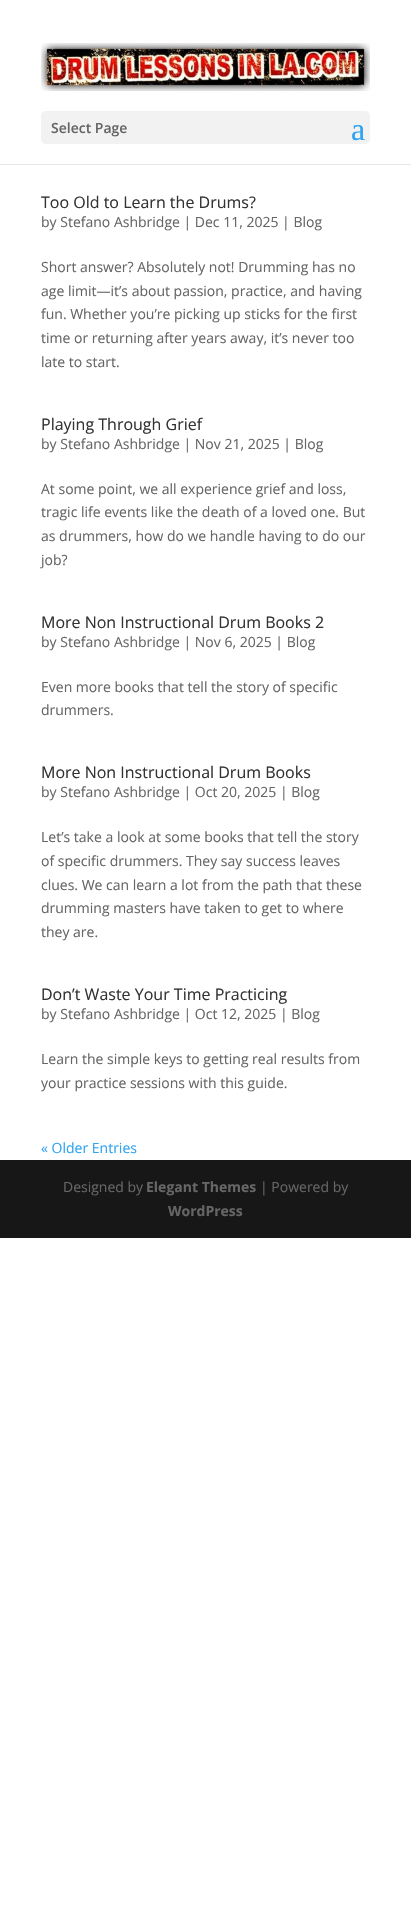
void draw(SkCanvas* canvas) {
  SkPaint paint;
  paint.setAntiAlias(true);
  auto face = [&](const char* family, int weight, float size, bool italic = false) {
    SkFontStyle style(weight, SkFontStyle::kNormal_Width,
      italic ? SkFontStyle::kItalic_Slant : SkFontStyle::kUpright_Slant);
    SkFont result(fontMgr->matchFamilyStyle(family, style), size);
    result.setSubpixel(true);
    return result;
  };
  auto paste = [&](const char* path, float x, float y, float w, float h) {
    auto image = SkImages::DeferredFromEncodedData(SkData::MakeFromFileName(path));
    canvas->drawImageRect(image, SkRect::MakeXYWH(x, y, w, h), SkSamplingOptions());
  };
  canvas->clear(0xffffffff);
  paint.setColor(0xffe6e6e6);
  canvas->drawRect(SkRect::MakeXYWH(0, 164, 411, 1), paint);
  paste("img/1.png", 41, 43, 329, 48);
  paint.setColor(0xfff2f2f2);
  canvas->drawRoundRect(SkRect::MakeXYWH(41, 111, 329, 33), 5, 5, paint);
  paint.setColor(0xff171717);
  canvas->drawRect(SkRect::MakeXYWH(0, 1160, 411, 78), paint);
  auto f0 = face("Open Sans", 600, 14);
  paint.setColor(0xff666666);
  canvas->drawString("Select Page", 51, 133, f0, paint);
  auto f1 = face("Liberation Serif", 400, 32);
  paint.setColor(0xff2ea3f2);
  canvas->drawString("a", 351, 140, f1, paint);
  auto f2 = face("Open Sans", 400, 16);
  paint.setColor(0xff333333);
  canvas->drawString("Too Old to Learn the Drums?", 41, 208, f2, paint);
  auto f3 = face("Open Sans", 400, 14);
  paint.setColor(0xff666666);
  {
    const struct { const char* s; float x, y; } items[] = {
      {"by Stefano Ashbridge | Dec 11, 2025 | Blog", 41, 227},
      {"Short answer? Absolutely not! Drumming has no", 41, 272},
      {"age limit—it’s about passion, practice, and having", 41, 296},
      {"fun. Whether you’re picking up sticks for the first", 41, 319},
      {"time or returning after years away, it’s never too", 41, 343},
      {"late to start.", 41, 367},
    };
    for (auto [s, x, y] : items) {
      canvas->drawString(s, x, y, f3, paint);
    }
  }
  paint.setColor(0xff333333);
  canvas->drawString("Playing Through Grief", 41, 430, f2, paint);
  paint.setColor(0xff666666);
  {
    const struct { const char* s; float x, y; } items[] = {
      {"by Stefano Ashbridge | Nov 21, 2025 | Blog", 41, 449},
      {"At some point, we all experience grief and loss,", 41, 494},
      {"tragic life events like the death of a loved one. But", 41, 517},
      {"as drummers, how do we handle having to do our", 41, 541},
      {"job?", 41, 565},
    };
    for (auto [s, x, y] : items) {
      canvas->drawString(s, x, y, f3, paint);
    }
  }
  paint.setColor(0xff333333);
  canvas->drawString("More Non Instructional Drum Books 2", 41, 628, f2, paint);
  paint.setColor(0xff666666);
  {
    const struct { const char* s; float x, y; } items[] = {
      {"by Stefano Ashbridge | Nov 6, 2025 | Blog", 41, 647},
      {"Even more books that tell the story of specific", 41, 692},
      {"drummers.", 41, 715},
    };
    for (auto [s, x, y] : items) {
      canvas->drawString(s, x, y, f3, paint);
    }
  }
  paint.setColor(0xff333333);
  canvas->drawString("More Non Instructional Drum Books", 41, 778, f2, paint);
  paint.setColor(0xff666666);
  {
    const struct { const char* s; float x, y; } items[] = {
      {"by Stefano Ashbridge | Oct 20, 2025 | Blog", 41, 797},
      {"Let’s take a look at some books that tell the story", 41, 842},
      {"of specific drummers. They say success leaves", 41, 866},
      {"clues. We can learn a lot from the path that these", 41, 890},
      {"drumming masters have taken to get to where", 41, 913},
      {"they are.", 41, 937},
    };
    for (auto [s, x, y] : items) {
      canvas->drawString(s, x, y, f3, paint);
    }
  }
  paint.setColor(0xff333333);
  canvas->drawString("Don’t Waste Your Time Practicing", 41, 1000, f2, paint);
  paint.setColor(0xff666666);
  {
    const struct { const char* s; float x, y; } items[] = {
      {"by Stefano Ashbridge | Oct 12, 2025 | Blog", 41, 1019},
      {"Learn the simple keys to getting real results from", 41, 1064},
      {"your practice sessions with this guide.", 41, 1088},
    };
    for (auto [s, x, y] : items) {
      canvas->drawString(s, x, y, f3, paint);
    }
  }
  paint.setColor(0xff2ea3f2);
  canvas->drawString("« Older Entries", 41, 1153, f3, paint);
  paint.setColor(0xff666666);
  canvas->drawString("Designed by", 63, 1192, f3, paint);
  auto f4 = face("Open Sans", 700, 14);
  canvas->drawString("Elegant Themes", 146, 1192, f4, paint);
  canvas->drawString("| Powered by", 260, 1192, f3, paint);
  canvas->drawString("WordPress", 168, 1216, f4, paint);
}
